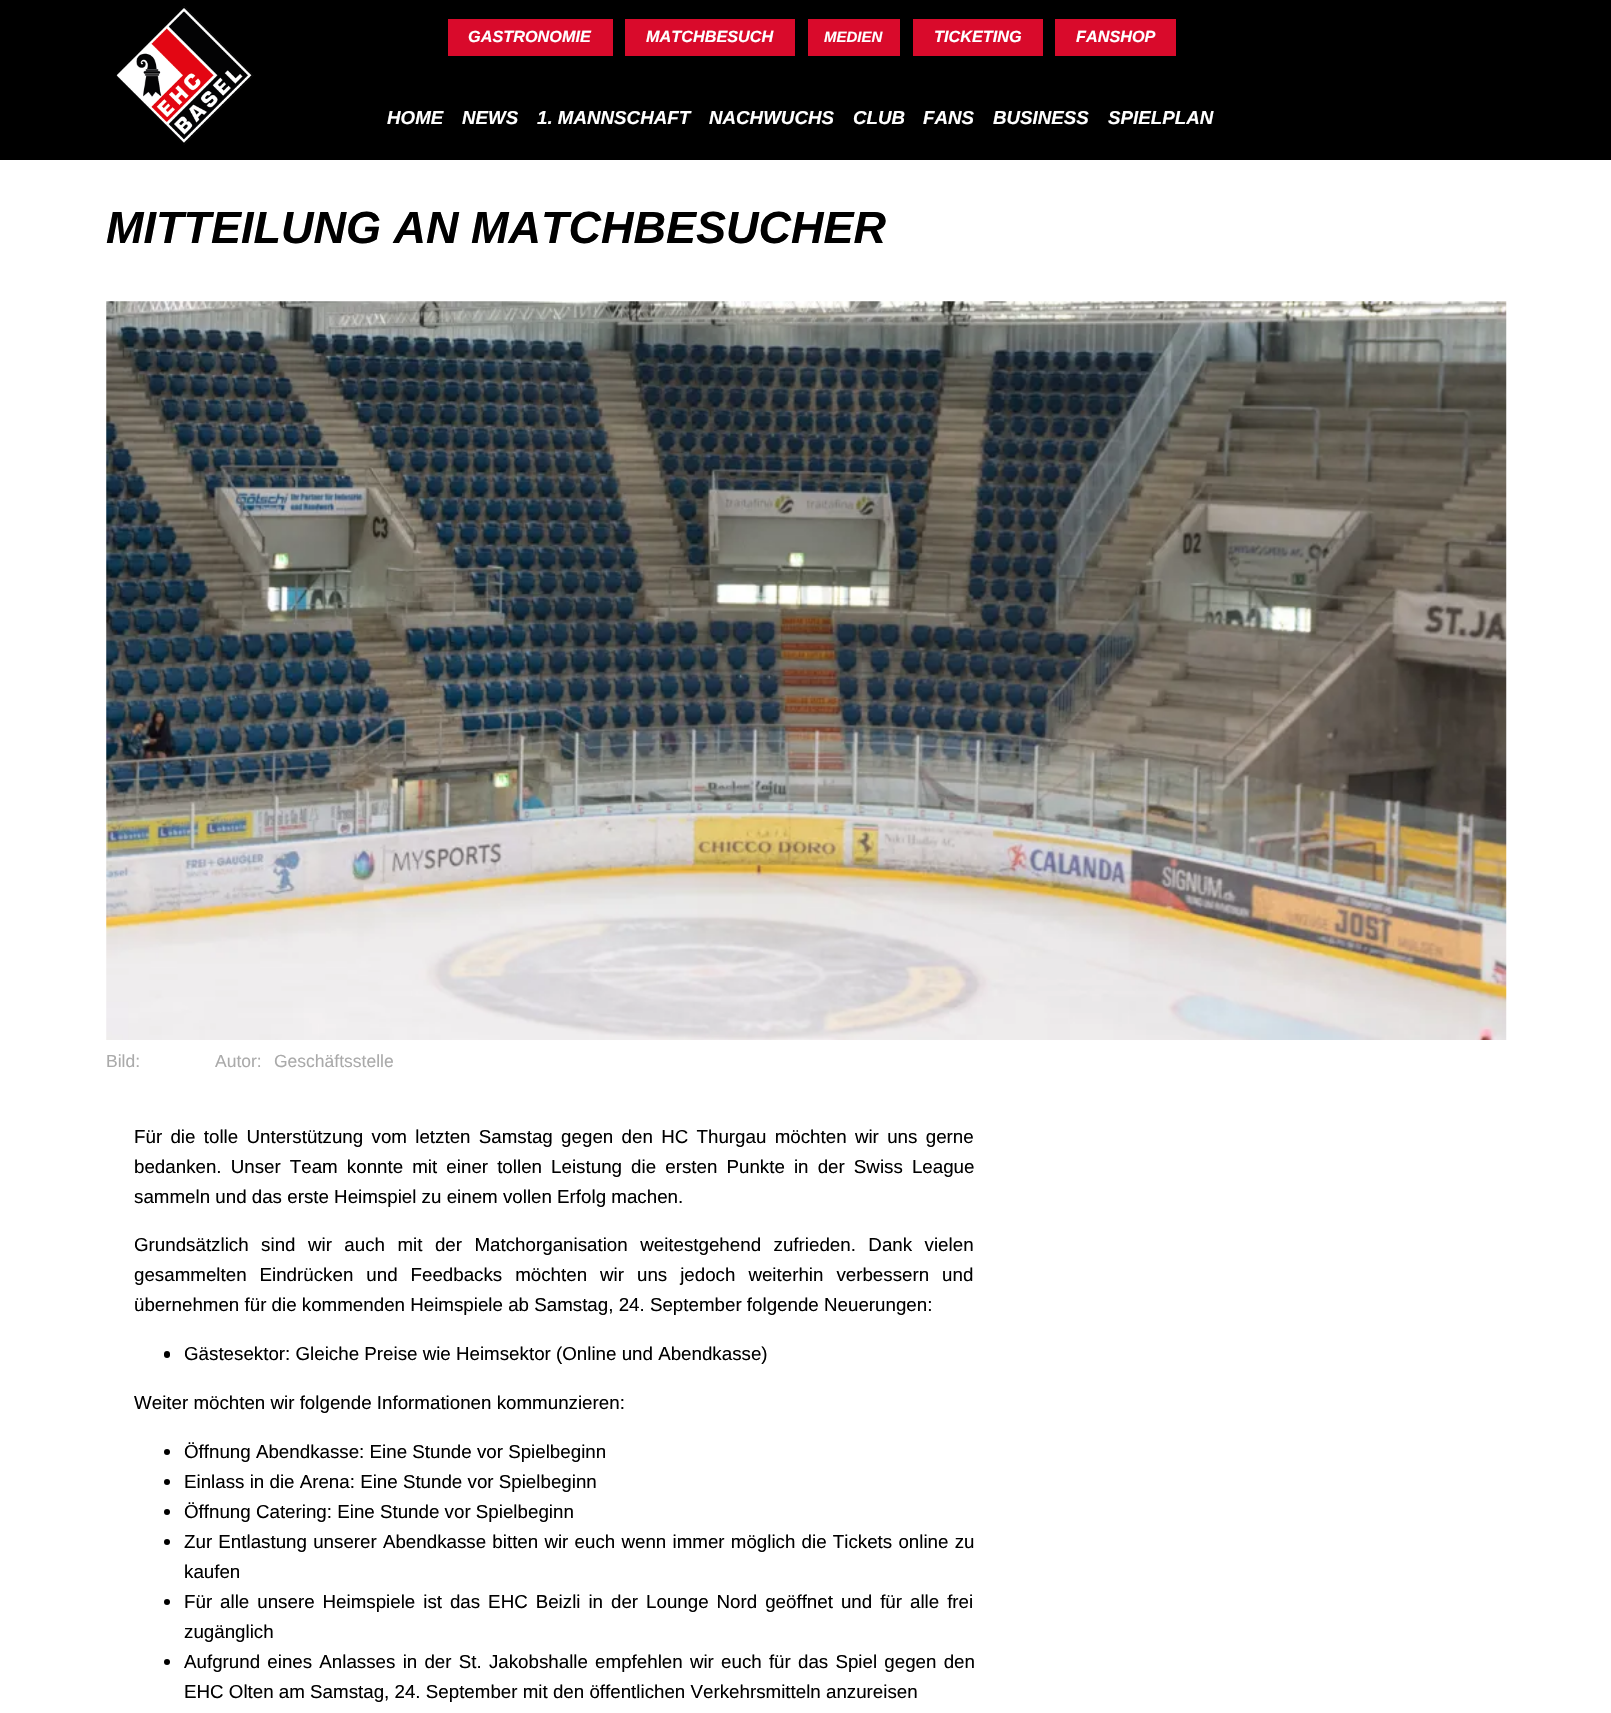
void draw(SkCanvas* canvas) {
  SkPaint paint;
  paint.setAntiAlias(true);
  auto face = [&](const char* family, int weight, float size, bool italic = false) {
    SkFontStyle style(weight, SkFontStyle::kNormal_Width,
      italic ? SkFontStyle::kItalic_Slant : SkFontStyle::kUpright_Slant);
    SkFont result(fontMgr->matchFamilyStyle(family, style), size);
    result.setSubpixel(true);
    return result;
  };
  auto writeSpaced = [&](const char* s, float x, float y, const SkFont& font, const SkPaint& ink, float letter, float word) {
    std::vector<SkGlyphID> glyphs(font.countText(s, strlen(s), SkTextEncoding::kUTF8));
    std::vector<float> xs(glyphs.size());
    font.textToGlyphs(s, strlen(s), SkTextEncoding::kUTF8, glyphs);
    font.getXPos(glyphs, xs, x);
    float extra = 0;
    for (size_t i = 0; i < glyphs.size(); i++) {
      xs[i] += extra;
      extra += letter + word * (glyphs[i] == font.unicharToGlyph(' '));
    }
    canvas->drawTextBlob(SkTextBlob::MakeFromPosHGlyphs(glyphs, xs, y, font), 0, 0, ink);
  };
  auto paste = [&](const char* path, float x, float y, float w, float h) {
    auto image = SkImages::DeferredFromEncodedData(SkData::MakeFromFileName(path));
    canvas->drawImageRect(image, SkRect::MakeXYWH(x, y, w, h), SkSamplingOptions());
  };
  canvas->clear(0xffffffff);
  paint.setColor(0xff000000);
  canvas->drawRect(SkRect::MakeXYWH(0, 0, 1611, 160), paint);
  paste("img/1.png", 116, 6, 138, 139);
  {
    const struct { float x, y, w, h; SkColor color; } items[] = {
      {448, 19, 165, 37, 0xffd90a2b},
      {625, 19, 170, 37, 0xffd90a2b},
      {808, 19, 92, 37, 0xffd90a2b},
      {913, 19, 130, 37, 0xffd90a2b},
      {1055, 19, 121, 37, 0xffd90a2b},
    };
    for (auto [x, y, w, h, color] : items) {
      paint.setColor(color);
      canvas->drawRect(SkRect::MakeXYWH(x, y, w, h), paint);
    }
  }
  paste("img/2.png", 106, 301, 1401, 739);
  paint.setColor(0xff000000);
  canvas->drawRoundRect(SkRect::MakeXYWH(164, 1351, 6, 7), 3, 3, paint);
  canvas->drawCircle(167, 1452, 3, paint);
  canvas->drawCircle(167, 1482, 3, paint);
  canvas->drawCircle(167, 1512, 3, paint);
  canvas->drawCircle(167, 1542, 3, paint);
  canvas->drawCircle(167, 1602, 3, paint);
  canvas->drawCircle(167, 1662, 3, paint);
  auto f0 = face("Liberation Sans", 700, 16.25f, true);
  paint.setColor(0xffffffff);
  canvas->drawString("GASTRONOMIE", 468, 42, f0, paint);
  canvas->drawString("MATCHBESUCH", 646, 42, f0, paint);
  auto f1 = face("Liberation Sans", 700, 15, true);
  canvas->drawString("MEDIEN", 824, 42, f1, paint);
  canvas->drawString("TICKETING", 934, 42, f0, paint);
  canvas->drawString("FANSHOP", 1076, 42, f0, paint);
  auto f2 = face("Liberation Sans", 700, 18.75f, true);
  {
    const struct { const char* s; float x, y; } items[] = {
      {"HOME", 387, 124},
      {"NEWS", 462, 124},
      {"1. MANNSCHAFT", 537, 124},
      {"NACHWUCHS", 709, 124},
      {"CLUB", 853, 124},
      {"FANS", 923, 124},
      {"BUSINESS", 993, 124},
      {"SPIELPLAN", 1108, 124},
    };
    for (auto [s, x, y] : items) {
      canvas->drawString(s, x, y, f2, paint);
    }
  }
  auto f3 = face("Liberation Sans", 700, 45, true);
  paint.setColor(0xff000000);
  canvas->drawString("MITTEILUNG AN MATCHBESUCHER", 106, 243, f3, paint);
  auto f4 = face("Liberation Sans", 400, 17.5f);
  paint.setColor(0xffaaaaaa);
  {
    const struct { const char* s; float x, y; } items[] = {
      {"Bild:", 106, 1067},
      {"Autor:", 215, 1067},
      {"Geschäftsstelle", 274, 1067},
    };
    for (auto [s, x, y] : items) {
      canvas->drawString(s, x, y, f4, paint);
    }
  }
  auto f5 = face("Liberation Sans", 400, 18.75f);
  paint.setColor(0xff000000);
  writeSpaced("Für die tolle Unterstützung vom letzten Samstag gegen den HC Thurgau möchten wir uns gerne", 134, 1143, f5, paint, 0, 3.1f);
  writeSpaced("bedanken. Unser Team konnte mit einer tollen Leistung die ersten Punkte in der Swiss League", 134, 1173, f5, paint, 0, 3.9f);
  canvas->drawString("sammeln und das erste Heimspiel zu einem vollen Erfolg machen.", 134, 1203, f5, paint);
  writeSpaced("Grundsätzlich sind wir auch mit der Matchorganisation weitestgehend zufrieden. Dank vielen", 134, 1251, f5, paint, 0, 7.25f);
  writeSpaced("gesammelten Eindrücken und Feedbacks möchten wir uns jedoch weiterhin verbessern und", 134, 1281, f5, paint, 0, 7.75f);
  {
    const struct { const char* s; float x, y; } items[] = {
      {"übernehmen für die kommenden Heimspiele ab Samstag, 24. September folgende Neuerungen:", 134, 1311},
      {"Gästesektor: Gleiche Preise wie Heimsektor (Online und Abendkasse)", 184, 1360},
      {"Weiter möchten wir folgende Informationen kommunzieren:", 134, 1409},
      {"Öffnung Abendkasse: Eine Stunde vor Spielbeginn", 184, 1458},
      {"Einlass in die Arena: Eine Stunde vor Spielbeginn", 184, 1488},
      {"Öffnung Catering: Eine Stunde vor Spielbeginn", 184, 1518},
    };
    for (auto [s, x, y] : items) {
      canvas->drawString(s, x, y, f5, paint);
    }
  }
  writeSpaced("Zur Entlastung unserer Abendkasse bitten wir euch wenn immer möglich die Tickets online zu", 184, 1548, f5, paint, 0, 1);
  canvas->drawString("kaufen", 184, 1578, f5, paint);
  writeSpaced("Für alle unsere Heimspiele ist das EHC Beizli in der Lounge Nord geöffnet und für alle frei", 184, 1608, f5, paint, 0, 2.75f);
  canvas->drawString("zugänglich", 184, 1638, f5, paint);
  writeSpaced("Aufgrund eines Anlasses in der St. Jakobshalle empfehlen wir euch für das Spiel gegen den", 184, 1668, f5, paint, 0, 2);
  canvas->drawString("EHC Olten am Samstag, 24. September mit den öffentlichen Verkehrsmitteln anzureisen", 184, 1698, f5, paint);
}
